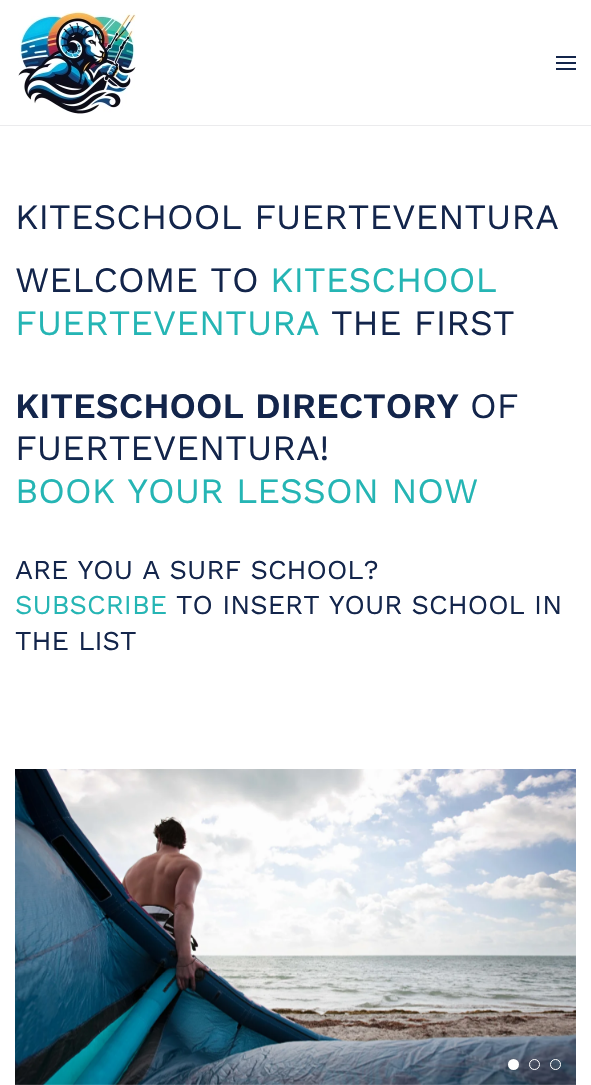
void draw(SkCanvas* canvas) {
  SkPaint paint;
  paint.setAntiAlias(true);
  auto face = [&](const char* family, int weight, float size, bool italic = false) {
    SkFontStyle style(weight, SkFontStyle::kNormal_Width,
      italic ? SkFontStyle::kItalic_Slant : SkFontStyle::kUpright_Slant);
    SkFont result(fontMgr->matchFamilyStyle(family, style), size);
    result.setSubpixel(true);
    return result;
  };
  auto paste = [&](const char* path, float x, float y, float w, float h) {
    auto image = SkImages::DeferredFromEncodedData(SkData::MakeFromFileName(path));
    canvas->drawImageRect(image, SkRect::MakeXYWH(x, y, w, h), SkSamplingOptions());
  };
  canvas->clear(0xffffffff);
  paint.setColor(0xffebebed);
  canvas->drawRect(SkRect::MakeXYWH(0, 125, 591, 1), paint);
  paste("img/1.png", 18, 11, 118, 103);
  {
    const struct { float x, y, w, h; SkColor color; } items[] = {
      {556, 56, 20, 2, 0xff13254b},
      {556, 62, 20, 2, 0xff13254b},
      {556, 68, 20, 2, 0xff13254b},
    };
    for (auto [x, y, w, h, color] : items) {
      paint.setColor(color);
      canvas->drawRect(SkRect::MakeXYWH(x, y, w, h), paint);
    }
  }
  paste("img/2.png", 15, 769, 561, 316);
  paint.setColor(0xffffffff);
  canvas->drawCircle(513.5f, 1064.5f, 5.5f, paint);
  paint.setStroke(true);
  paint.setStrokeWidth(1);
  canvas->drawCircle(534.5f, 1064.5f, 5, paint);
  canvas->drawCircle(555.5f, 1064.5f, 5, paint);
  auto f0 = face("Work Sans", 400, 35.75f);
  paint.setStroke(false);
  paint.setColor(0xff13254b);
  canvas->drawString("KITESCHOOL FUERTEVENTURA", 15, 229, f0, paint);
  canvas->drawString("WELCOME TO", 15, 292, f0, paint);
  paint.setColor(0xff25b5b4);
  canvas->drawString("KITESCHOOL", 270, 292, f0, paint);
  canvas->drawString("FUERTEVENTURA", 15, 335, f0, paint);
  paint.setColor(0xff13254b);
  canvas->drawString("THE FIRST", 331, 335, f0, paint);
  auto f1 = face("Work Sans", 600, 35.75f);
  canvas->drawString("KITESCHOOL DIRECTORY", 15, 418, f1, paint);
  canvas->drawString("OF", 470, 418, f0, paint);
  canvas->drawString("FUERTEVENTURA!", 15, 460, f0, paint);
  paint.setColor(0xff25b5b4);
  canvas->drawString("BOOK YOUR LESSON NOW", 15, 503, f0, paint);
  auto f2 = face("Work Sans", 400, 27.25f);
  paint.setColor(0xff13254b);
  canvas->drawString("ARE YOU A SURF SCHOOL?", 15, 579, f2, paint);
  paint.setColor(0xff25b5b4);
  canvas->drawString("SUBSCRIBE", 15, 614, f2, paint);
  paint.setColor(0xff13254b);
  canvas->drawString("TO INSERT YOUR SCHOOL IN", 176, 614, f2, paint);
  canvas->drawString("THE LIST", 15, 650, f2, paint);
}
